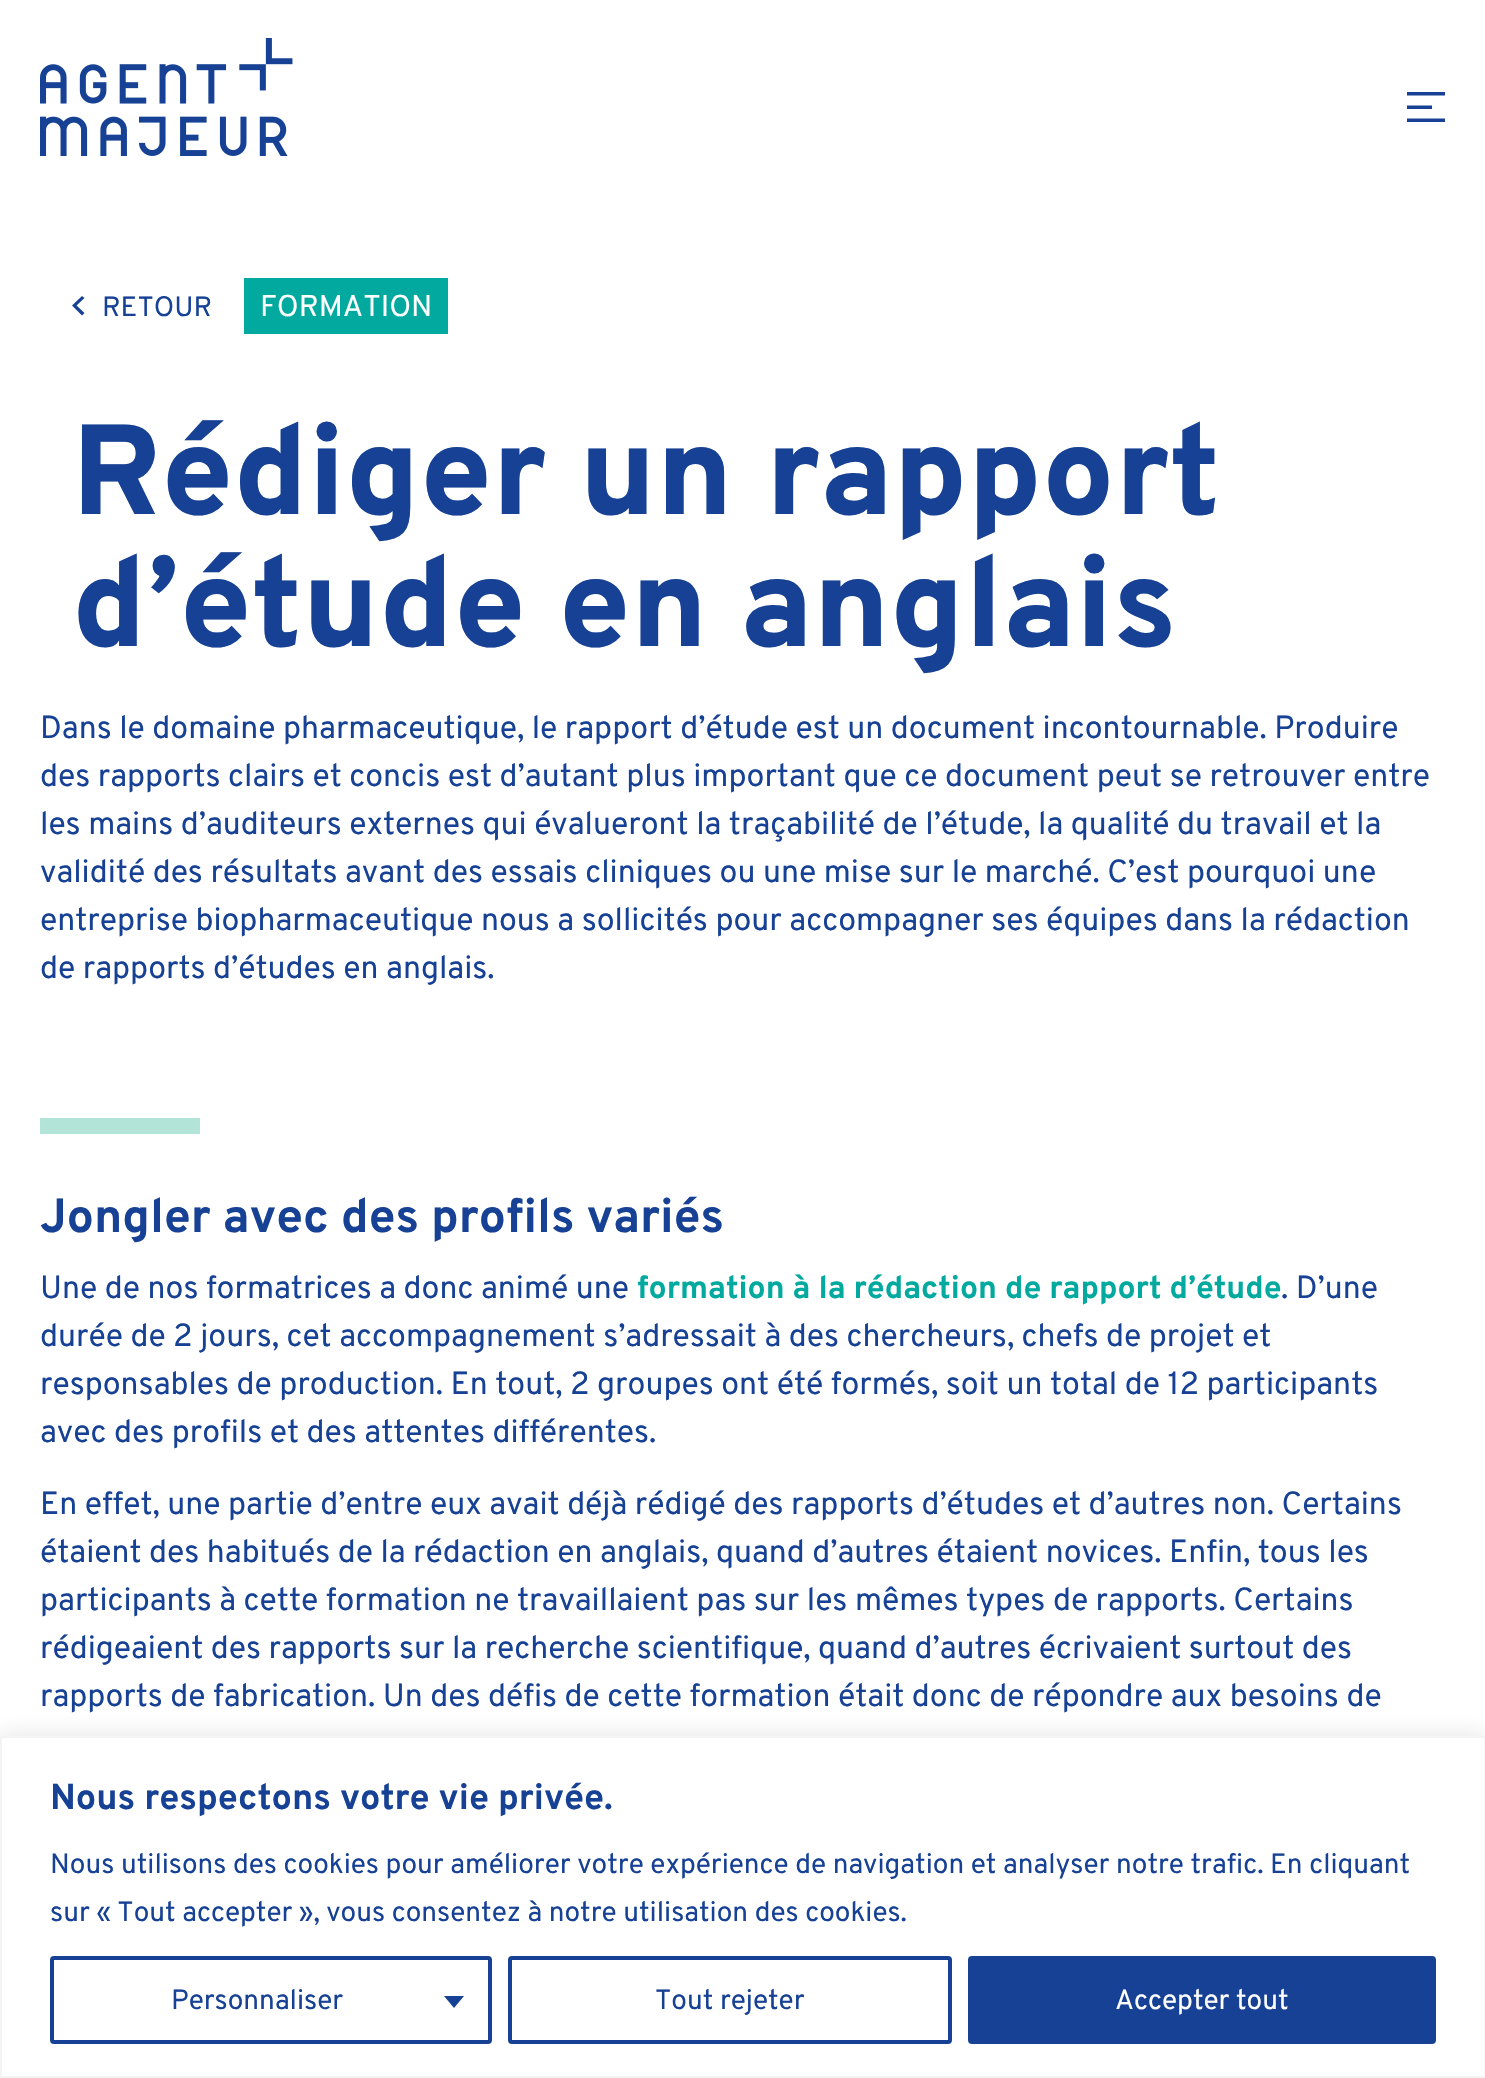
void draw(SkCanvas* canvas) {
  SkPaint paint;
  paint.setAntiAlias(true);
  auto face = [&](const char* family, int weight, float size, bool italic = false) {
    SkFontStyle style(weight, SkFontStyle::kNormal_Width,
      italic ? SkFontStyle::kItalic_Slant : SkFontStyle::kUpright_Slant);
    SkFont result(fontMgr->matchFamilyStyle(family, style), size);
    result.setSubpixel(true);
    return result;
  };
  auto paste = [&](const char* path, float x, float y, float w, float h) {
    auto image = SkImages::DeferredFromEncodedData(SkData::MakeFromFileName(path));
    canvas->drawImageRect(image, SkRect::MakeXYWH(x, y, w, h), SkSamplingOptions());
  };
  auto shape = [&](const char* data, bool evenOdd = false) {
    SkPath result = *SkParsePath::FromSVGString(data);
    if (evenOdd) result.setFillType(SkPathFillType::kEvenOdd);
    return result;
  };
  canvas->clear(0xffffffff);
  paste("img/1.png", 40, 38, 253, 118);
  paint.setColor(0xff164194);
  canvas->drawPath(shape("M1407 92H1445V95.5H1407ZM1407 105.5H1432V109H1407ZM1408.5 118.5H1407V122H1445V118.5Z"), paint);
  canvas->drawPath(shape("M84.5 298L82 296L72 305.5L82 315.5L84.5 313L76.5 305.5Z"), paint);
  paint.setColor(0xff02a99e);
  canvas->drawRect(SkRect::MakeXYWH(244, 278, 204, 56), paint);
  paint.setColor(0xffb2e4d7);
  canvas->drawRect(SkRect::MakeXYWH(40, 1118, 160, 16), paint);
  paint.setColor(0x4dacabab);
  paint.setMaskFilter(SkMaskFilter::MakeBlur(kNormal_SkBlurStyle, 10));
  canvas->drawRect(SkRect::MakeXYWH(0, 1734, 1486, 342), paint);
  paint.setMaskFilter(nullptr);
  paint.setColor(0xffffffff);
  canvas->drawRect(SkRect::MakeXYWH(1, 1737, 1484, 340), paint);
  paint.setStroke(true);
  paint.setStrokeWidth(2);
  paint.setColor(0xfff4f4f4);
  canvas->drawRect(SkRect::MakeXYWH(1, 1737, 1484, 340), paint);
  paint.setStrokeWidth(4);
  paint.setColor(0xff164194);
  canvas->drawRoundRect(SkRect::MakeXYWH(52, 1958, 438, 84), 2, 2, paint);
  paint.setStroke(false);
  canvas->drawPath(shape("M444 1996H464L454 2008Z"), paint);
  paint.setStroke(true);
  canvas->drawRoundRect(SkRect::MakeXYWH(510, 1958, 440, 84), 2, 2, paint);
  paint.setStroke(false);
  canvas->drawRoundRect(SkRect::MakeXYWH(970, 1958, 464, 84), 2, 2, paint);
  paint.setStroke(true);
  canvas->drawRoundRect(SkRect::MakeXYWH(970, 1958, 464, 84), 2, 2, paint);
  auto f0 = face("Overpass", 400, 28);
  paint.setStroke(false);
  canvas->drawString("RETOUR", 102, 316, f0, paint);
  auto f1 = face("Overpass", 400, 30);
  paint.setColor(0xffffffff);
  canvas->drawString("FORMATION", 260, 316, f1, paint);
  auto f2 = face("Overpass", 800, 128);
  paint.setColor(0xff164194);
  canvas->drawString("Rédiger un rapport", 72, 514, f2, paint);
  canvas->drawString("d’étude en anglais", 72, 646, f2, paint);
  auto f3 = face("Overpass", 400, 32);
  {
    const struct { const char* s; float x, y; } items[] = {
      {"Dans le domaine pharmaceutique, le rapport d’étude est un document incontournable. Produire", 40, 738},
      {"des rapports clairs et concis est d’autant plus important que ce document peut se retrouver entre", 40, 786},
      {"les mains d’auditeurs externes qui évalueront la traçabilité de l’étude, la qualité du travail et la", 40, 834},
      {"validité des résultats avant des essais cliniques ou une mise sur le marché. C’est pourquoi une", 40, 882},
      {"entreprise biopharmaceutique nous a sollicités pour accompagner ses équipes dans la rédaction", 40, 930},
      {"de rapports d’études en anglais.", 40, 978},
    };
    for (auto [s, x, y] : items) {
      canvas->drawString(s, x, y, f3, paint);
    }
  }
  auto f4 = face("Overpass", 700, 48);
  canvas->drawString("Jongler avec des profils variés", 40, 1232, f4, paint);
  canvas->drawString("Une de nos formatrices a donc animé une", 40, 1298, f3, paint);
  auto f5 = face("Overpass", 700, 32);
  paint.setColor(0xff02a99e);
  canvas->drawString("formation à la rédaction de rapport d’étude", 637, 1298, f5, paint);
  paint.setColor(0xff164194);
  {
    const struct { const char* s; float x, y; } items[] = {
      {". D’une", 1281, 1298},
      {"durée de 2 jours, cet accompagnement s’adressait à des chercheurs, chefs de projet et", 40, 1346},
      {"responsables de production. En tout, 2 groupes ont été formés, soit un total de 12 participants", 40, 1394},
      {"avec des profils et des attentes différentes.", 40, 1442},
      {"En effet, une partie d’entre eux avait déjà rédigé des rapports d’études et d’autres non. Certains", 40, 1514},
      {"étaient des habitués de la rédaction en anglais, quand d’autres étaient novices. Enfin, tous les", 40, 1562},
      {"participants à cette formation ne travaillaient pas sur les mêmes types de rapports. Certains", 40, 1610},
      {"rédigeaient des rapports sur la recherche scientifique, quand d’autres écrivaient surtout des", 40, 1658},
      {"rapports de fabrication. Un des défis de cette formation était donc de répondre aux besoins de", 40, 1706},
    };
    for (auto [s, x, y] : items) {
      canvas->drawString(s, x, y, f3, paint);
    }
  }
  auto f6 = face("Overpass", 700, 36);
  canvas->drawString("Nous respectons votre vie privée.", 50, 1809, f6, paint);
  {
    const struct { const char* s; float x, y; } items[] = {
      {"Nous utilisons des cookies pour améliorer votre expérience de navigation et analyser notre trafic. En cliquant", 50, 1873},
      {"sur « Tout accepter », vous consentez à notre utilisation des cookies.", 50, 1921},
      {"Personnaliser", 171, 2009},
      {"Tout rejeter", 655, 2009},
    };
    for (auto [s, x, y] : items) {
      canvas->drawString(s, x, y, f0, paint);
    }
  }
  paint.setColor(0xffffffff);
  canvas->drawString("Accepter tout", 1115, 2009, f0, paint);
}
